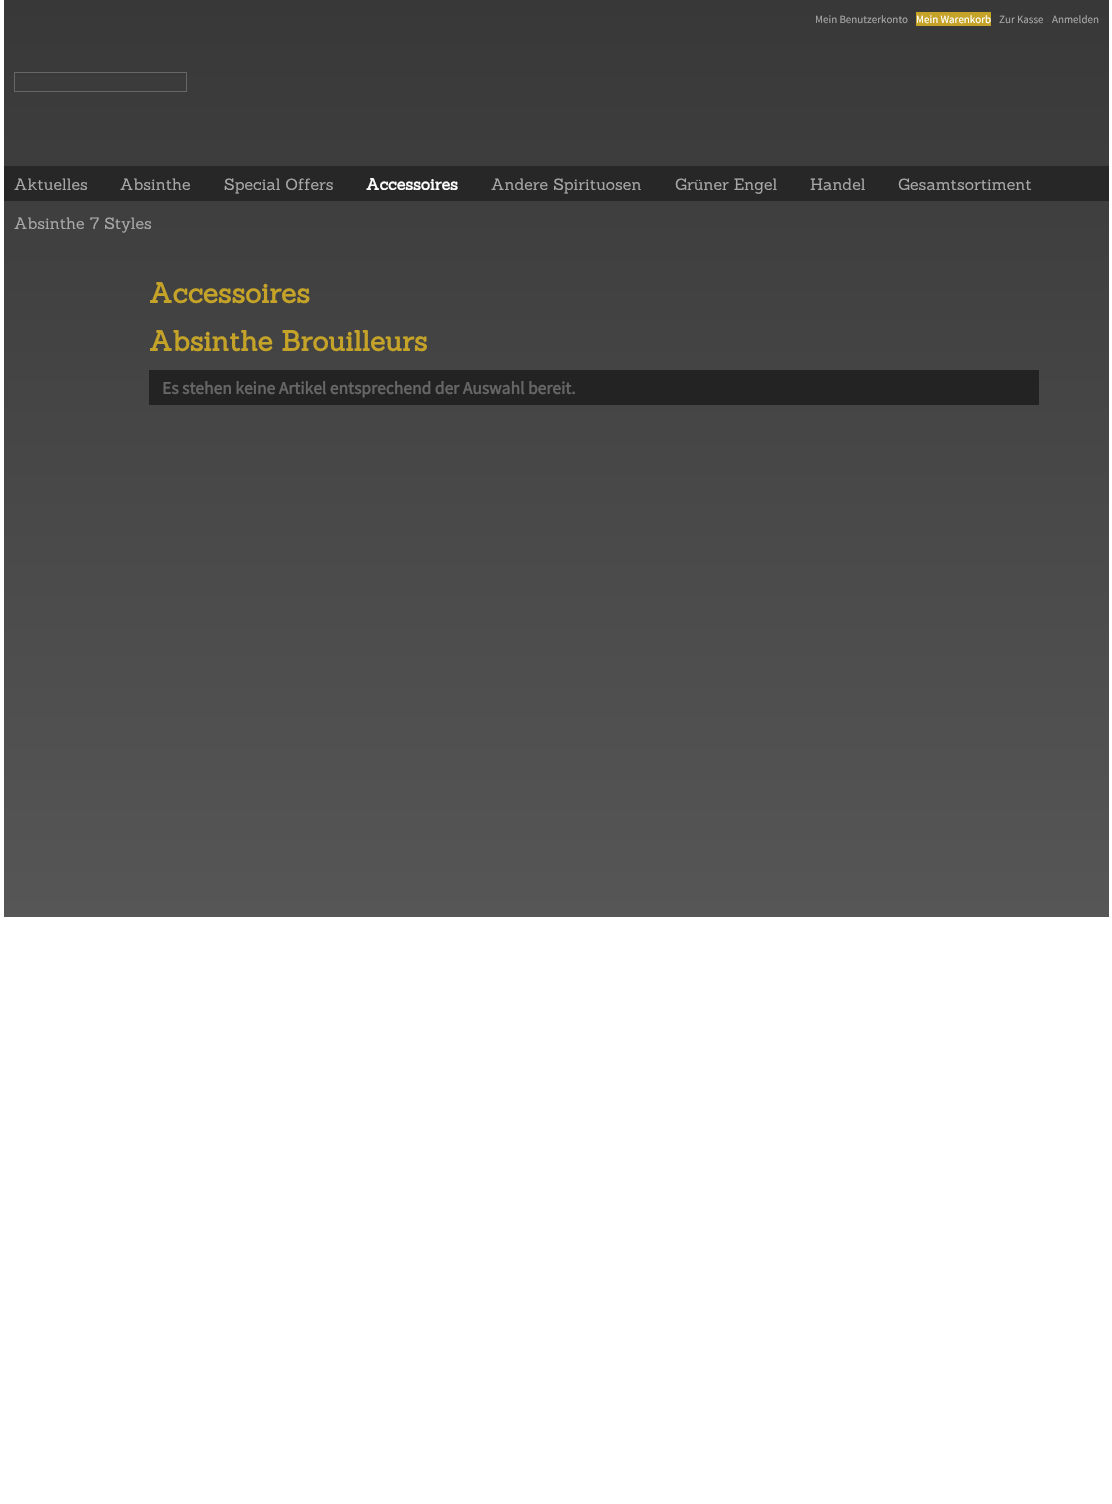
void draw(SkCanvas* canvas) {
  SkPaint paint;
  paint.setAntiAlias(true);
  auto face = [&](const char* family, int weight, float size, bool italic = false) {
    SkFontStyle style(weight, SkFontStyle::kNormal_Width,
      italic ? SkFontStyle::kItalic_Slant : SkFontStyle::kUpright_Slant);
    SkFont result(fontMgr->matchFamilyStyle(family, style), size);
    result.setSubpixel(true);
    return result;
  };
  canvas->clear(0xffffffff);
  {
    const SkColor colors[] = {0xff383838, 0xff565656};
    const float stops[] = {0, 1};
    const SkPoint ends[] = {{557, 0}, {557, 917}};
    paint.setShader(SkGradientShader::MakeLinear(ends, colors, stops, 2, SkTileMode::kClamp));
    paint.setAlpha(255);
  }
  canvas->drawRect(SkRect::MakeXYWH(4, 0, 1105, 917), paint);
  paint.setShader(nullptr);
  paint.setColor(0xffc4a328);
  canvas->drawRect(SkRect::MakeXYWH(916, 12, 75, 14), paint);
  paint.setStroke(true);
  paint.setStrokeWidth(1);
  paint.setColor(0xff666666);
  canvas->drawRect(SkRect::MakeXYWH(14.5f, 72.5f, 172, 19), paint);
  paint.setStroke(false);
  paint.setColor(0xff272727);
  canvas->drawRect(SkRect::MakeXYWH(4, 166, 1105, 35), paint);
  paint.setColor(0xff232323);
  canvas->drawRect(SkRect::MakeXYWH(149, 370, 890, 35), paint);
  auto f0 = face("Source Sans Pro", 400, 11);
  paint.setColor(0xffa7a7a7);
  canvas->drawString("Mein Benutzerkonto", 815, 23, f0, paint);
  paint.setColor(0xffffffff);
  canvas->drawString("Mein Warenkorb", 916, 23, f0, paint);
  paint.setColor(0xffa7a7a7);
  canvas->drawString("Zur Kasse", 999, 23, f0, paint);
  canvas->drawString("Anmelden", 1052, 23, f0, paint);
  auto f1 = face("Sanchez", 400, 16);
  {
    const struct { const char* s; float x, y; } items[] = {
      {"Aktuelles", 14, 190},
      {"Absinthe", 120, 190},
      {"Special Offers", 224, 190},
    };
    for (auto [s, x, y] : items) {
      canvas->drawString(s, x, y, f1, paint);
    }
  }
  auto f2 = face("Sanchez", 700, 16);
  paint.setColor(0xffffffff);
  canvas->drawString("Accessoires", 366, 190, f2, paint);
  paint.setColor(0xffa7a7a7);
  {
    const struct { const char* s; float x, y; } items[] = {
      {"Andere Spirituosen", 491, 190},
      {"Grüner Engel", 675, 190},
      {"Handel", 810, 190},
      {"Gesamtsortiment", 898, 190},
      {"Absinthe 7 Styles", 14, 229},
    };
    for (auto [s, x, y] : items) {
      canvas->drawString(s, x, y, f1, paint);
    }
  }
  auto f3 = face("Sanchez", 700, 28);
  paint.setColor(0xffc4a328);
  canvas->drawString("Accessoires", 149, 303, f3, paint);
  canvas->drawString("Absinthe Brouilleurs", 149, 351, f3, paint);
  auto f4 = face("Source Sans Pro", 700, 17.5f);
  paint.setColor(0xff666666);
  canvas->drawString("Es stehen keine Artikel entsprechend der Auswahl bereit.", 162, 394, f4, paint);
}
